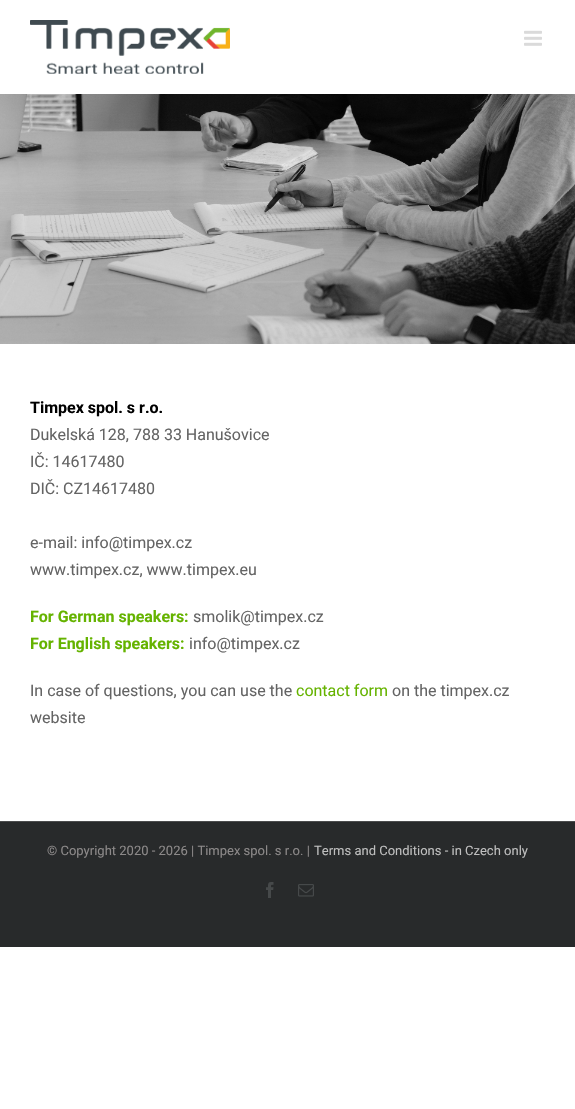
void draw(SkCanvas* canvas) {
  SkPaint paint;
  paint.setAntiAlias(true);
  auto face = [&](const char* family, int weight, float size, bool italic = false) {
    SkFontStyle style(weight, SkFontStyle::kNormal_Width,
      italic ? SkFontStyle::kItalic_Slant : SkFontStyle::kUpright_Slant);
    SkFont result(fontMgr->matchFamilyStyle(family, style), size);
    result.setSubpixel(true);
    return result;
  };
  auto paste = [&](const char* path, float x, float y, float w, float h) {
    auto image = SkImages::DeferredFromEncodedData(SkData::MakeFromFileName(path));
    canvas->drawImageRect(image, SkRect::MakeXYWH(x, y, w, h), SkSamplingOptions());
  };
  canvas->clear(0xffffffff);
  paste("img/3.png", 0, 94, 575, 250);
  canvas->save();
  canvas->clipRect(SkRect::MakeXYWH(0, 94, 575, 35));
  paint.setColor(0x24000000);
  paint.setMaskFilter(SkMaskFilter::MakeBlur(kNormal_SkBlurStyle, 25));
  canvas->drawRect(SkRect::MakeXYWH(2, 12, 571, 90), paint);
  paint.setMaskFilter(nullptr);
  canvas->restore();
  paste("img/1.png", 30, 20, 200, 54);
  paste("img/2.png", 524, 30, 18, 16);
  paint.setColor(0xff282a2b);
  canvas->drawRect(SkRect::MakeXYWH(0, 822, 575, 125), paint);
  paint.setColor(0xff4b4c4d);
  canvas->drawRect(SkRect::MakeXYWH(0, 821, 575, 1), paint);
  paste("img/4.png", 266, 882, 8, 16);
  paste("img/5.png", 298, 884, 16, 13);
  auto f0 = face("Roboto", 700, 16);
  paint.setColor(0xff000000);
  canvas->drawString("Timpex spol. s r.o.", 30, 413, f0, paint);
  auto f1 = face("Roboto", 400, 16);
  paint.setColor(0xff646464);
  {
    const struct { const char* s; float x, y; } items[] = {
      {"Dukelská 128, 788 33 Hanušovice", 30, 440},
      {"IČ: 14617480", 30, 467},
      {"DIČ: CZ14617480", 30, 494},
      {"e-mail: info@timpex.cz", 30, 548},
      {"www.timpex.cz, www.timpex.eu", 30, 575},
    };
    for (auto [s, x, y] : items) {
      canvas->drawString(s, x, y, f1, paint);
    }
  }
  paint.setColor(0xff65b300);
  canvas->drawString("For German speakers:", 30, 622, f0, paint);
  paint.setColor(0xff646464);
  canvas->drawString("smolik@timpex.cz", 193, 622, f1, paint);
  paint.setColor(0xff65b300);
  canvas->drawString("For English speakers:", 30, 649, f0, paint);
  paint.setColor(0xff646464);
  canvas->drawString("info@timpex.cz", 189, 649, f1, paint);
  canvas->drawString("In case of questions, you can use the", 30, 696, f1, paint);
  paint.setColor(0xff65b300);
  canvas->drawString("contact form", 296, 696, f1, paint);
  paint.setColor(0xff646464);
  canvas->drawString("on the timpex.cz", 392, 696, f1, paint);
  canvas->drawString("website", 30, 723, f1, paint);
  auto f2 = face("Roboto", 400, 13);
  paint.setColor(0xff8c8989);
  canvas->drawString("© Copyright 2020 - 2026 | Timpex spol. s r.o. |", 47, 855, f2, paint);
  paint.setColor(0xffbfbfbf);
  canvas->drawString("Terms and Conditions - in Czech only", 314, 855, f2, paint);
}
